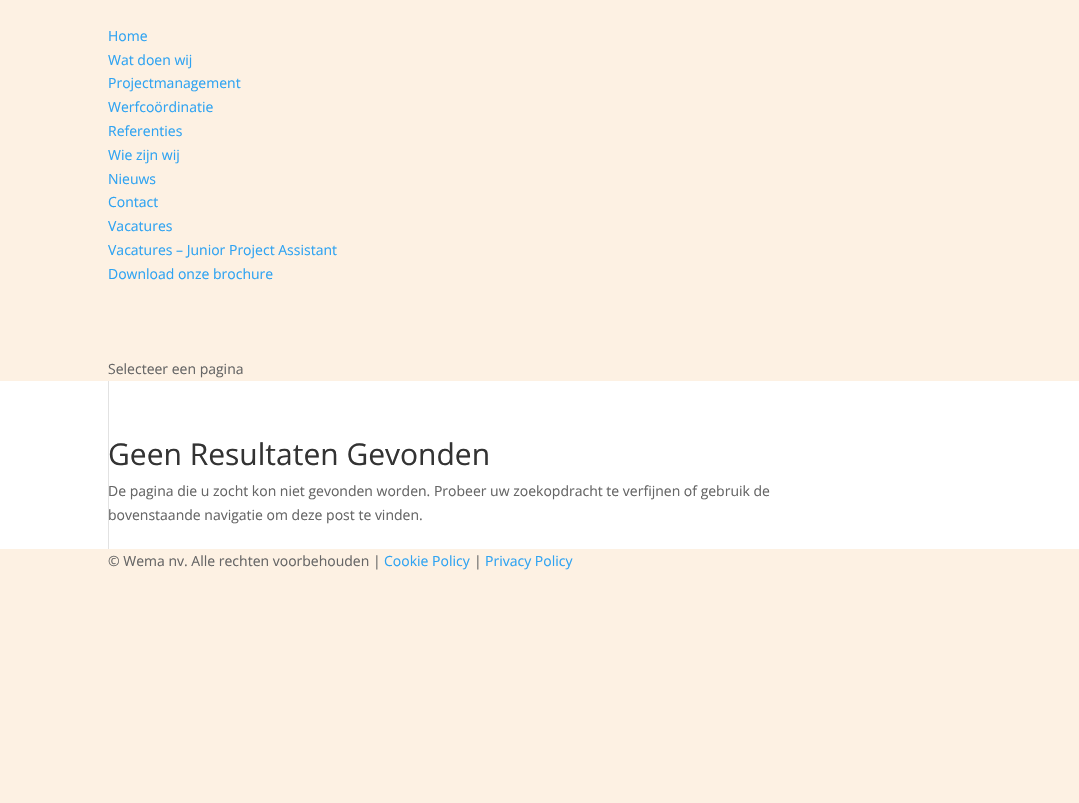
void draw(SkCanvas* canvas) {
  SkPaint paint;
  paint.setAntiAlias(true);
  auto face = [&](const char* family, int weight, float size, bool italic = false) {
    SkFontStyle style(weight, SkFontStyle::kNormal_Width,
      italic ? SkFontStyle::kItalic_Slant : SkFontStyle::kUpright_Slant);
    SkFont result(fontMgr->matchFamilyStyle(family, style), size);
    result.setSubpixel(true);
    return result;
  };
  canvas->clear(0xfffdf1e3);
  paint.setColor(0xffffffff);
  canvas->drawRect(SkRect::MakeXYWH(0, 381, 1079, 168), paint);
  paint.setColor(0xffe2e2e2);
  canvas->drawRect(SkRect::MakeXYWH(108, 381, 1, 168), paint);
  auto f0 = face("Open Sans", 400, 14);
  paint.setColor(0xff2ea3f2);
  {
    const struct { const char* s; float x, y; } items[] = {
      {"Home", 108, 41},
      {"Wat doen wij", 108, 65},
      {"Projectmanagement", 108, 88},
      {"Werfcoördinatie", 108, 112},
      {"Referenties", 108, 136},
      {"Wie zijn wij", 108, 160},
      {"Nieuws", 108, 184},
      {"Contact", 108, 207},
      {"Vacatures", 108, 231},
      {"Vacatures – Junior Project Assistant", 108, 255},
      {"Download onze brochure", 108, 279},
    };
    for (auto [s, x, y] : items) {
      canvas->drawString(s, x, y, f0, paint);
    }
  }
  paint.setColor(0xff666666);
  canvas->drawString("Selecteer een pagina", 108, 374, f0, paint);
  auto f1 = face("Open Sans", 400, 30);
  paint.setColor(0xff333333);
  canvas->drawString("Geen Resultaten Gevonden", 108, 465, f1, paint);
  paint.setColor(0xff666666);
  {
    const struct { const char* s; float x, y; } items[] = {
      {"De pagina die u zocht kon niet gevonden worden. Probeer uw zoekopdracht te verfijnen of gebruik de", 108, 496},
      {"bovenstaande navigatie om deze post te vinden.", 108, 520},
      {"© Wema nv. Alle rechten voorbehouden |", 108, 566},
    };
    for (auto [s, x, y] : items) {
      canvas->drawString(s, x, y, f0, paint);
    }
  }
  paint.setColor(0xff2ea3f2);
  canvas->drawString("Cookie Policy", 384, 566, f0, paint);
  paint.setColor(0xff666666);
  canvas->drawString("|", 474, 566, f0, paint);
  paint.setColor(0xff2ea3f2);
  canvas->drawString("Privacy Policy", 485, 566, f0, paint);
}
